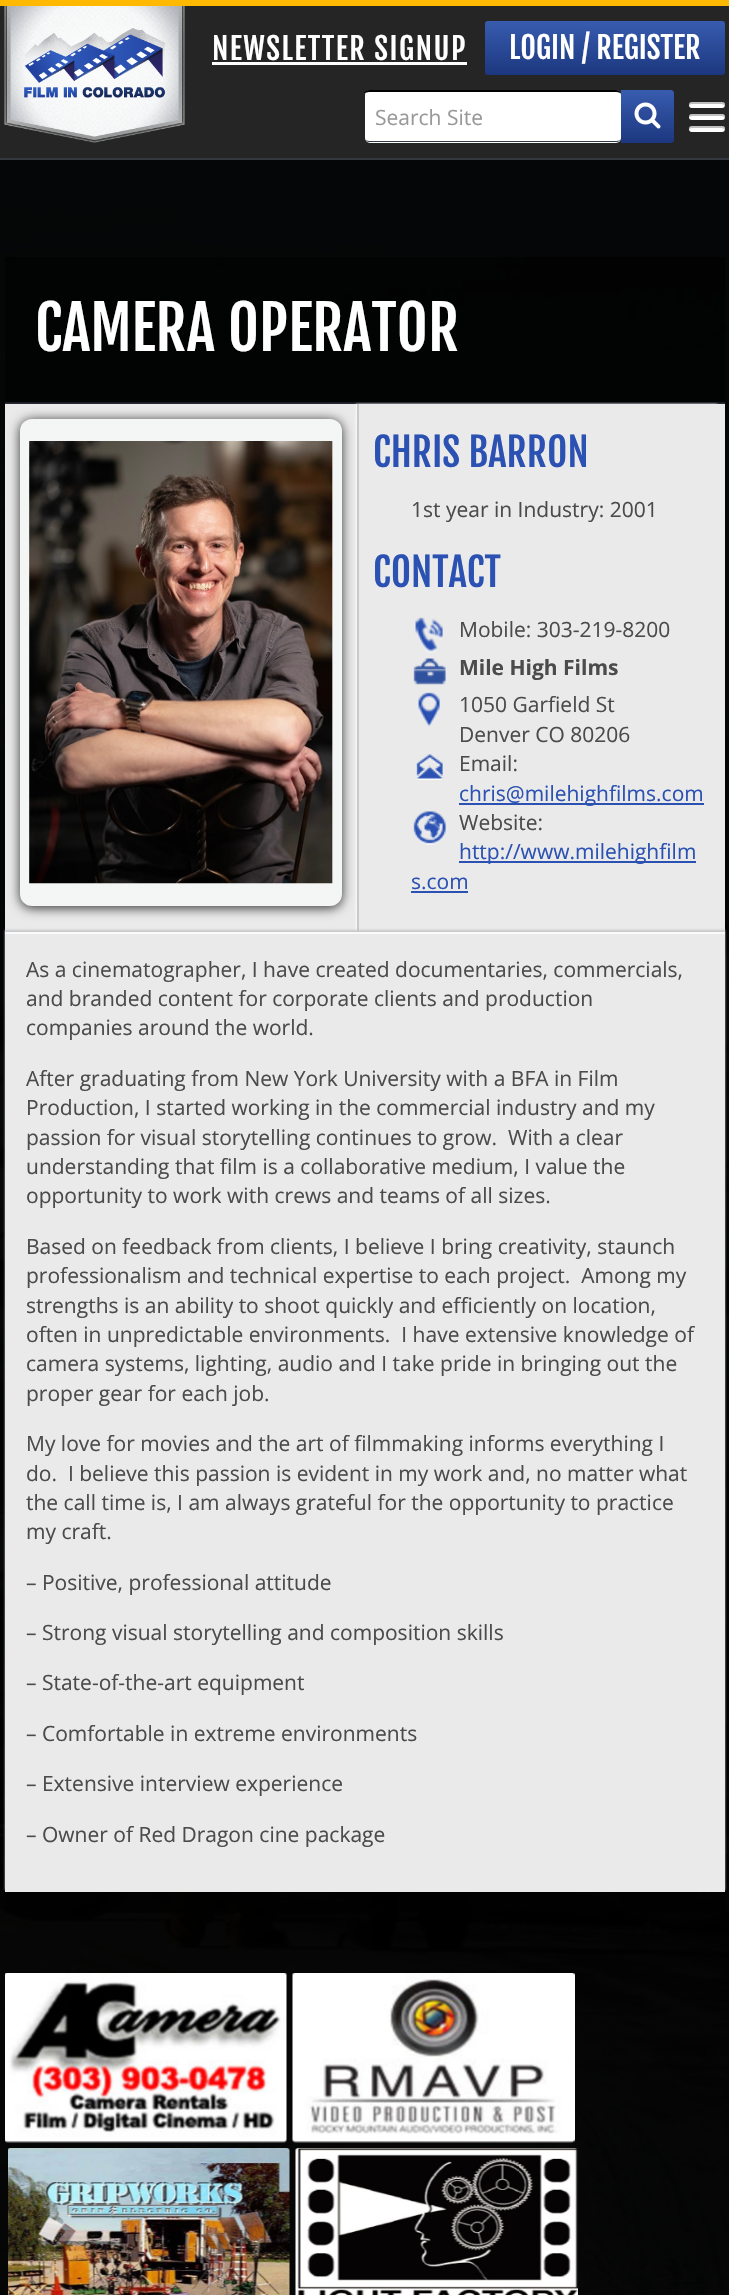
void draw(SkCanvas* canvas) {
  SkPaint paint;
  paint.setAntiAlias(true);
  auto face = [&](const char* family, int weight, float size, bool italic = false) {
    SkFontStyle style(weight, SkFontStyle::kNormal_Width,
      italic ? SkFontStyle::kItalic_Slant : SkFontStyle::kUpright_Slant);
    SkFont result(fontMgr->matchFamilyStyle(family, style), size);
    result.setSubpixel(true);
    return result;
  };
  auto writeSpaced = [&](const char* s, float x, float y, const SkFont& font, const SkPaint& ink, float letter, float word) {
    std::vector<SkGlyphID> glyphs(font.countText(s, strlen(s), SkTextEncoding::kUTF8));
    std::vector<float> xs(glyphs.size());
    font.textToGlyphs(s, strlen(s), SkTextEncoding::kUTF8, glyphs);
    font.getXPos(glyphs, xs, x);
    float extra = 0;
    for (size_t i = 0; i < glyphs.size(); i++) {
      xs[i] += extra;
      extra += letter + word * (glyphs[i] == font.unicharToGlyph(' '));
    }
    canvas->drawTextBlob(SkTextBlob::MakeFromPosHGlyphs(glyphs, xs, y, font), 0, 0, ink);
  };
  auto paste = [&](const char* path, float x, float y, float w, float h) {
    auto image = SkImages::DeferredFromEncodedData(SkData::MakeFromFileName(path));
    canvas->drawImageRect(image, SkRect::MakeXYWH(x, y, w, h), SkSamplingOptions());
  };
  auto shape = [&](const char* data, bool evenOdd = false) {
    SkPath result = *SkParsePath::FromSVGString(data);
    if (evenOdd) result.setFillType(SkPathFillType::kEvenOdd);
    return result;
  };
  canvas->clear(0xff000000);
  paint.setColor(0xff252525);
  canvas->drawRect(SkRect::MakeXYWH(0, 6, 729, 152), paint);
  paint.setColor(0xfffeb900);
  canvas->drawRect(SkRect::MakeXYWH(0, 0, 729, 6), paint);
  paste("img/1.png", 4, 6, 181, 137);
  paint.setColor(0xffffffff);
  canvas->drawRect(SkRect::MakeXYWH(212, 62, 255, 3), paint);
  {
    const SkColor colors[] = {0xff385caf, 0xff1c377f};
    const float stops[] = {0, 1};
    const SkPoint ends[] = {{605, 21}, {605, 75}};
    paint.setShader(SkGradientShader::MakeLinear(ends, colors, stops, 2, SkTileMode::kClamp));
    paint.setAlpha(255);
  }
  canvas->drawRoundRect(SkRect::MakeXYWH(485, 21, 240, 54), 3, 3, paint);
  paint.setShader(nullptr);
  paint.setColor(0xffffffff);
  canvas->drawRoundRect(SkRect::MakeXYWH(365, 90, 256, 53), 5, 5, paint);
  paint.setColor(0xff000000);
  canvas->drawPath(shape("M369 90C368 90 365 91 364 93C365 93 368 92 369 92H616C619 92 621 93 621 94C621 92 619 90 616 90Z"), paint);
  paint.setColor(0xff303842);
  canvas->drawPath(shape("M616 142C619 142 621 140 621 138C621 140 619 141 616 141H369C368 141 365 140 364 139C365 141 368 142 369 142Z"), paint);
  {
    const SkColor colors[] = {0xff385caf, 0xff1c377f};
    const float stops[] = {0, 1};
    const SkPoint ends[] = {{647, 90}, {647, 143}};
    paint.setShader(SkGradientShader::MakeLinear(ends, colors, stops, 2, SkTileMode::kClamp));
    paint.setAlpha(255);
  }
  canvas->drawPath(shape("M621 90H671C672.5 90 674 91.5 674 93V140C674 141.5 672.5 143 671 143H621Z"), paint);
  paste("img/2.png", 634, 102, 27, 27);
  paint.setShader(nullptr);
  paint.setColor(0xffffffff);
  canvas->drawRoundRect(SkRect::MakeXYWH(689, 102, 36, 6), 3, 3, paint);
  paint.setColor(0x40000000);
  canvas->drawPath(shape("M692 104H722L724 105L724.5 107C724.5 106.5 725 105.5 725 105C725 103.5 723.5 102 722 102H692C690.5 102 689 103 689 105Z"), paint);
  paint.setColor(0xffffffff);
  canvas->drawRoundRect(SkRect::MakeXYWH(689, 114, 36, 6), 3, 3, paint);
  paint.setColor(0x40000000);
  canvas->drawPath(shape("M692 116H722L724 117L724.5 119C724.5 118.5 725 117.5 725 117C725 115.5 723.5 114 722 114H692C690.5 114 689 115 689 117Z"), paint);
  paint.setColor(0xffffffff);
  canvas->drawRoundRect(SkRect::MakeXYWH(689, 126, 36, 6), 3, 3, paint);
  paint.setColor(0x40000000);
  canvas->drawPath(shape("M692 128H722L724 129L724.5 131C724.5 130.5 725 129.5 725 129C725 127.5 723.5 126 722 126H692C690.5 126 689 127 689 129Z"), paint);
  paint.setColor(0xff34383f);
  canvas->drawRect(SkRect::MakeXYWH(0, 158, 729, 2), paint);
  paste("img/13.png", 0, 160, 729, 2135);
  {
    const struct { float x, y, w, h; SkColor color; } items[] = {
      {5, 257, 720, 1656, 0xb3000000},
      {5, 402, 720, 2, 0xff242932},
      {5, 402, 720, 1, 0x59000000},
      {5, 404, 720, 1488, 0xffeaeaeb},
    };
    for (auto [x, y, w, h, color] : items) {
      paint.setColor(color);
      canvas->drawRect(SkRect::MakeXYWH(x, y, w, h), paint);
    }
  }
  paint.setColor(0xff323232);
  paint.setMaskFilter(SkMaskFilter::MakeBlur(kNormal_SkBlurStyle, 6));
  canvas->drawRoundRect(SkRect::MakeXYWH(20, 420, 322, 488), 12, 12, paint);
  paint.setMaskFilter(nullptr);
  paint.setColor(0xfff4f6f6);
  canvas->drawRoundRect(SkRect::MakeXYWH(20, 419, 322, 487), 12, 12, paint);
  paste("img/3.png", 29, 441, 304, 443);
  canvas->save();
  canvas->clipPath(shape("M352 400H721V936H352ZM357 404H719V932H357Z", true), true);
  paint.setColor(0xfffdfdfd);
  paint.setMaskFilter(SkMaskFilter::MakeBlur(kNormal_SkBlurStyle, 1));
  canvas->drawRect(SkRect::MakeXYWH(356, 404, 361, 528), paint);
  paint.setMaskFilter(nullptr);
  canvas->restore();
  paint.setColor(0xffc8c9ca);
  canvas->drawRect(SkRect::MakeXYWH(357, 404, 2, 528), paint);
  paste("img/4.png", 415, 617, 28, 36);
  paste("img/5.png", 413, 658, 33, 27);
  paste("img/6.png", 418, 692, 22, 35);
  paste("img/7.png", 416, 754, 27, 26);
  paint.setColor(0xff2b52b2);
  canvas->drawRect(SkRect::MakeXYWH(459, 803, 245, 2), paint);
  paste("img/8.png", 413, 811, 33, 34);
  canvas->drawRect(SkRect::MakeXYWH(459, 861, 237, 2), paint);
  canvas->drawRect(SkRect::MakeXYWH(411, 891, 57, 2), paint);
  canvas->save();
  canvas->clipPath(shape("M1 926H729V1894H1ZM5 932H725V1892H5Z", true), true);
  paint.setColor(0xffc7c7c9);
  paint.setMaskFilter(SkMaskFilter::MakeBlur(kNormal_SkBlurStyle, 1));
  canvas->drawRect(SkRect::MakeXYWH(5, 930, 720, 960), paint);
  paint.setMaskFilter(nullptr);
  canvas->restore();
  paint.setColor(0xfff9fafa);
  canvas->drawRect(SkRect::MakeXYWH(5, 932, 720, 2), paint);
  paste("img/9.png", 5, 1973, 282, 170);
  paste("img/10.png", 292, 1973, 283, 170);
  paste("img/11.png", 8, 2148, 282, 147);
  paste("img/12.png", 295, 2148, 283, 147);
  auto f0 = face("Fjalla One", 400, 30);
  paint.setColor(0xffffffff);
  writeSpaced("NEWSLETTER SIGNUP", 212, 60, f0, paint, 1.5f, 0);
  canvas->drawString("LOGIN / REGISTER", 509, 59, f0, paint);
  auto f1 = face("Open Sans", 400, 21);
  paint.setColor(0xff999999);
  canvas->drawString("Search Site", 375, 125, f1, paint);
  auto f2 = face("Fjalla One", 400, 60);
  paint.setColor(0xffffffff);
  canvas->drawString("CAMERA OPERATOR", 35, 351, f2, paint);
  auto f3 = face("Fjalla One", 400, 39);
  paint.setColor(0xff2b52b2);
  canvas->drawString("CHRIS BARRON", 373, 467, f3, paint);
  paint.setColor(0xff4b4b4b);
  canvas->drawString("1st year in Industry: 2001", 411, 517, f1, paint);
  paint.setColor(0xff2b52b2);
  canvas->drawString("CONTACT", 373, 587, f3, paint);
  paint.setColor(0xff4b4b4b);
  canvas->drawString("Mobile: 303-219-8200", 459, 637, f1, paint);
  auto f4 = face("Open Sans", 700, 21);
  canvas->drawString("Mile High Films", 459, 675, f4, paint);
  {
    const struct { const char* s; float x, y; } items[] = {
      {"1050 Garfield St", 459, 712},
      {"Denver CO 80206", 459, 742},
      {"Email:", 459, 771},
    };
    for (auto [s, x, y] : items) {
      canvas->drawString(s, x, y, f1, paint);
    }
  }
  paint.setColor(0xff2b52b2);
  canvas->drawString("chris@milehighfilms.com", 459, 801, f1, paint);
  paint.setColor(0xff4b4b4b);
  canvas->drawString("Website:", 459, 830, f1, paint);
  paint.setColor(0xff2b52b2);
  canvas->drawString("http://www.milehighfilm", 459, 859, f1, paint);
  canvas->drawString("s.com", 411, 889, f1, paint);
  paint.setColor(0xff4b4b4b);
  {
    const struct { const char* s; float x, y; } items[] = {
      {"As a cinematographer, I have created documentaries, commercials,", 26, 977},
      {"and branded content for corporate clients and production", 26, 1006},
      {"companies around the world.", 26, 1035},
      {"After graduating from New York University with a BFA in Film", 26, 1086},
      {"Production, I started working in the commercial industry and my", 26, 1115},
      {"passion for visual storytelling continues to grow.  With a clear", 26, 1145},
      {"understanding that film is a collaborative medium, I value the", 26, 1174},
      {"opportunity to work with crews and teams of all sizes.", 26, 1203},
      {"Based on feedback from clients, I believe I bring creativity, staunch", 26, 1254},
      {"professionalism and technical expertise to each project.  Among my", 26, 1283},
      {"strengths is an ability to shoot quickly and efficiently on location,", 26, 1313},
      {"often in unpredictable environments.  I have extensive knowledge of", 26, 1342},
      {"camera systems, lighting, audio and I take pride in bringing out the", 26, 1371},
      {"proper gear for each job.", 26, 1401},
      {"My love for movies and the art of filmmaking informs everything I", 26, 1451},
      {"do.  I believe this passion is evident in my work and, no matter what", 26, 1481},
      {"the call time is, I am always grateful for the opportunity to practice", 26, 1510},
      {"my craft.", 26, 1539},
      {"– Positive, professional attitude", 26, 1590},
      {"– Strong visual storytelling and composition skills", 26, 1640},
      {"– State-of-the-art equipment", 26, 1690},
      {"– Comfortable in extreme environments", 26, 1741},
      {"– Extensive interview experience", 26, 1791},
      {"– Owner of Red Dragon cine package", 26, 1842},
    };
    for (auto [s, x, y] : items) {
      canvas->drawString(s, x, y, f1, paint);
    }
  }
}
